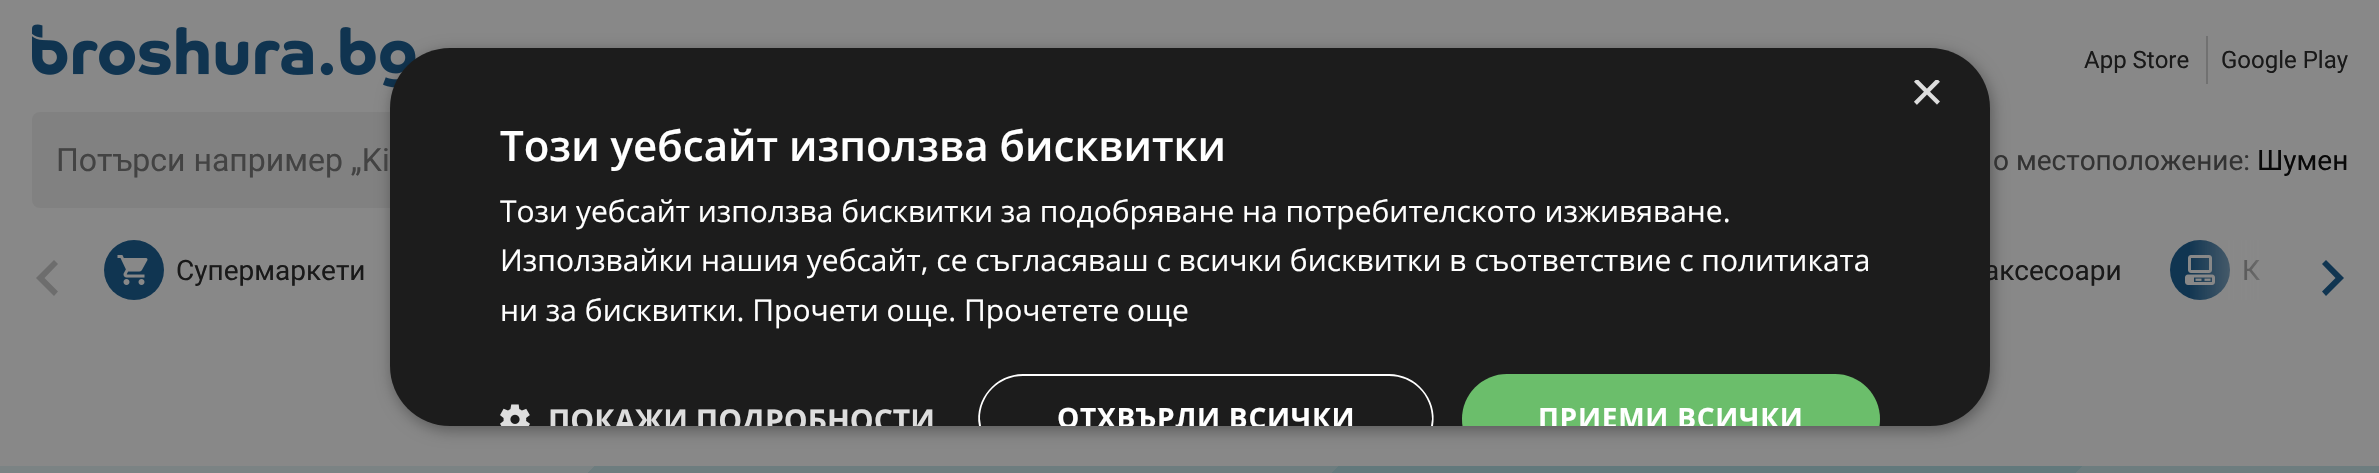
void draw(SkCanvas* canvas) {
  SkPaint paint;
  paint.setAntiAlias(true);
  auto face = [&](const char* family, int weight, float size, bool italic = false) {
    SkFontStyle style(weight, SkFontStyle::kNormal_Width,
      italic ? SkFontStyle::kItalic_Slant : SkFontStyle::kUpright_Slant);
    SkFont result(fontMgr->matchFamilyStyle(family, style), size);
    result.setSubpixel(true);
    return result;
  };
  auto writeSpaced = [&](const char* s, float x, float y, const SkFont& font, const SkPaint& ink, float letter, float word) {
    std::vector<SkGlyphID> glyphs(font.countText(s, strlen(s), SkTextEncoding::kUTF8));
    std::vector<float> xs(glyphs.size());
    font.textToGlyphs(s, strlen(s), SkTextEncoding::kUTF8, glyphs);
    font.getXPos(glyphs, xs, x);
    float extra = 0;
    for (size_t i = 0; i < glyphs.size(); i++) {
      xs[i] += extra;
      extra += letter + word * (glyphs[i] == font.unicharToGlyph(' '));
    }
    canvas->drawTextBlob(SkTextBlob::MakeFromPosHGlyphs(glyphs, xs, y, font), 0, 0, ink);
  };
  auto paste = [&](const char* path, float x, float y, float w, float h) {
    auto image = SkImages::DeferredFromEncodedData(SkData::MakeFromFileName(path));
    canvas->drawImageRect(image, SkRect::MakeXYWH(x, y, w, h), SkSamplingOptions());
  };
  auto shape = [&](const char* data, bool evenOdd = false) {
    SkPath result = *SkParsePath::FromSVGString(data);
    if (evenOdd) result.setFillType(SkPathFillType::kEvenOdd);
    return result;
  };
  canvas->clear(0xff888888);
  paste("img/1.png", 32, 24, 384, 64);
  paint.setColor(0xff717171);
  canvas->drawRect(SkRect::MakeXYWH(2206, 36, 2, 48), paint);
  paint.setColor(0xff818181);
  canvas->drawRoundRect(SkRect::MakeXYWH(32, 112, 1784, 96), 8, 8, paint);
  paint.setColor(0xff6d6d6d);
  canvas->drawPath(shape("M58 291.5L44.5 278L58 264L54 260L36 278L54 296Z"), paint);
  paint.setColor(0xff103551);
  canvas->drawCircle(134, 270, 30, paint);
  paste("img/2.png", 117, 255, 31, 30);
  canvas->drawCircle(2200, 270, 30, paint);
  paste("img/3.png", 2185, 255, 30, 30);
  canvas->drawPath(shape("M2322 291.5L2335.5 278L2322 264L2326 260L2344 278L2326 296Z"), paint);
  paint.setColor(0x59000000);
  paint.setMaskFilter(SkMaskFilter::MakeBlur(kNormal_SkBlurStyle, 8));
  canvas->drawRoundRect(SkRect::MakeXYWH(392, 52, 1600, 378), 60, 60, paint);
  paint.setMaskFilter(nullptr);
  {
    const SkColor colors[] = {0xff7b8384, 0xff7b8384, 0xff6d7d7f, 0xff6d7d7f, 0xff62797c, 0xff62797c, 0xff6d7d7f, 0xff6d7d7f};
    const float stops[] = {0, 0.2f, 0.2f, 0.45f, 0.45f, 0.7f, 0.7f, 1};
    const SkPoint ends[] = {{446, 19}, {1934, 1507}};
    paint.setShader(SkGradientShader::MakeLinear(ends, colors, stops, 8, SkTileMode::kClamp));
    paint.setAlpha(255);
  }
  canvas->drawRect(SkRect::MakeXYWH(0, 466, 2379, 7), paint);
  auto f0 = face("Roboto", 400, 24);
  paint.setShader(nullptr);
  paint.setColor(0xff191919);
  canvas->drawString("App Store", 2084, 68, f0, paint);
  canvas->drawString("Google Play", 2221, 68, f0, paint);
  auto f1 = face("Roboto", 400, 32);
  paint.setColor(0xff434343);
  canvas->drawString("Потърси например „Ki", 56, 171, f1, paint);
  auto f2 = face("Roboto", 400, 28);
  paint.setColor(0xff333333);
  canvas->drawString("о местоположение:", 1993, 170, f2, paint);
  paint.setColor(0xff090909);
  canvas->drawString("Шумен", 2257, 170, f2, paint);
  paint.setColor(0xff191919);
  {
    const struct { const char* s; float x, y; } items[] = {
      {"Супермаркети", 176, 280},
      {"аксесоари", 1984, 280},
      {"К", 2242, 280},
    };
    for (auto [s, x, y] : items) {
      canvas->drawString(s, x, y, f2, paint);
    }
  }
  {
    const SkColor colors[] = {0xff888888, 0x00888888};
    const float stops[] = {0, 1};
    const SkPoint ends[] = {{2284, 278}, {2188, 278}};
    paint.setShader(SkGradientShader::MakeLinear(ends, colors, stops, 2, SkTileMode::kClamp));
    paint.setAlpha(255);
  }
  canvas->drawRect(SkRect::MakeXYWH(2190, 240, 70, 60), paint);
  paint.setShader(nullptr);
  paint.setColor(0xff1c1c1c);
  canvas->drawRoundRect(SkRect::MakeXYWH(390, 48, 1600, 378), 60, 60, paint);
  canvas->save();
  canvas->clipRect(SkRect::MakeXYWH(1910, 80, 30, 30));
  auto f3 = face("Liberation Sans", 400, 58);
  paint.setColor(0xffdddddd);
  canvas->drawString("×", 1910, 111, f3, paint);
  canvas->restore();
  auto f4 = face("Open Sans", 600, 42);
  paint.setColor(0xffffffff);
  canvas->drawString("Този уебсайт използва бисквитки", 500, 161, f4, paint);
  auto f5 = face("Open Sans", 400, 30);
  {
    const struct { const char* s; float x, y; } items[] = {
      {"Този уебсайт използва бисквитки за подобряване на потребителското изживяване.", 500, 222},
      {"Използвайки нашия уебсайт, се съгласяваш с всички бисквитки в съответствие с политиката", 500, 271},
      {"ни за бисквитки. Прочети още. Прочетете още", 500, 321},
    };
    for (auto [s, x, y] : items) {
      canvas->drawString(s, x, y, f5, paint);
    }
  }
  paste("img/4.png", 500, 404, 30, 22);
  canvas->save();
  canvas->clipPath(shape("M450 48H1930C1963 48 1990 75 1990 108V366C1990 399 1963 426 1930 426H450C417 426 390 399 390 366V108C390 75 417 48 450 48Z"), true);
  auto f6 = face("Open Sans", 700, 30);
  paint.setColor(0xffdddddd);
  canvas->drawString("ПОКАЖИ ПОДРОБНОСТИ", 548, 431, f6, paint);
  canvas->restore();
  paint.setColor(0xffffffff);
  canvas->drawPath(shape("M1023 374C996 374 974 399 979 426H981L980 419C980 395 999 376 1023 376H1389C1413 376 1432 395 1432 419L1431 426H1433C1438 399 1416 374 1389 374Z"), paint);
  canvas->save();
  canvas->clipPath(shape("M450 48H1930C1963 48 1990 75 1990 108V366C1990 399 1963 426 1930 426H450C417 426 390 399 390 366V108C390 75 417 48 450 48Z"), true);
  auto f7 = face("Open Sans", 700, 28);
  writeSpaced("ОТХВЪРЛИ ВСИЧКИ", 1057, 428, f7, paint, 0.75f, 0);
  paint.setColor(0xff6bbe6b);
  canvas->drawRoundRect(SkRect::MakeXYWH(1462, 374, 418, 90), 45, 45, paint);
  paint.setColor(0xffffffff);
  writeSpaced("ПРИЕМИ ВСИЧКИ", 1538, 428, f7, paint, 0.75f, 0);
  canvas->restore();
}
